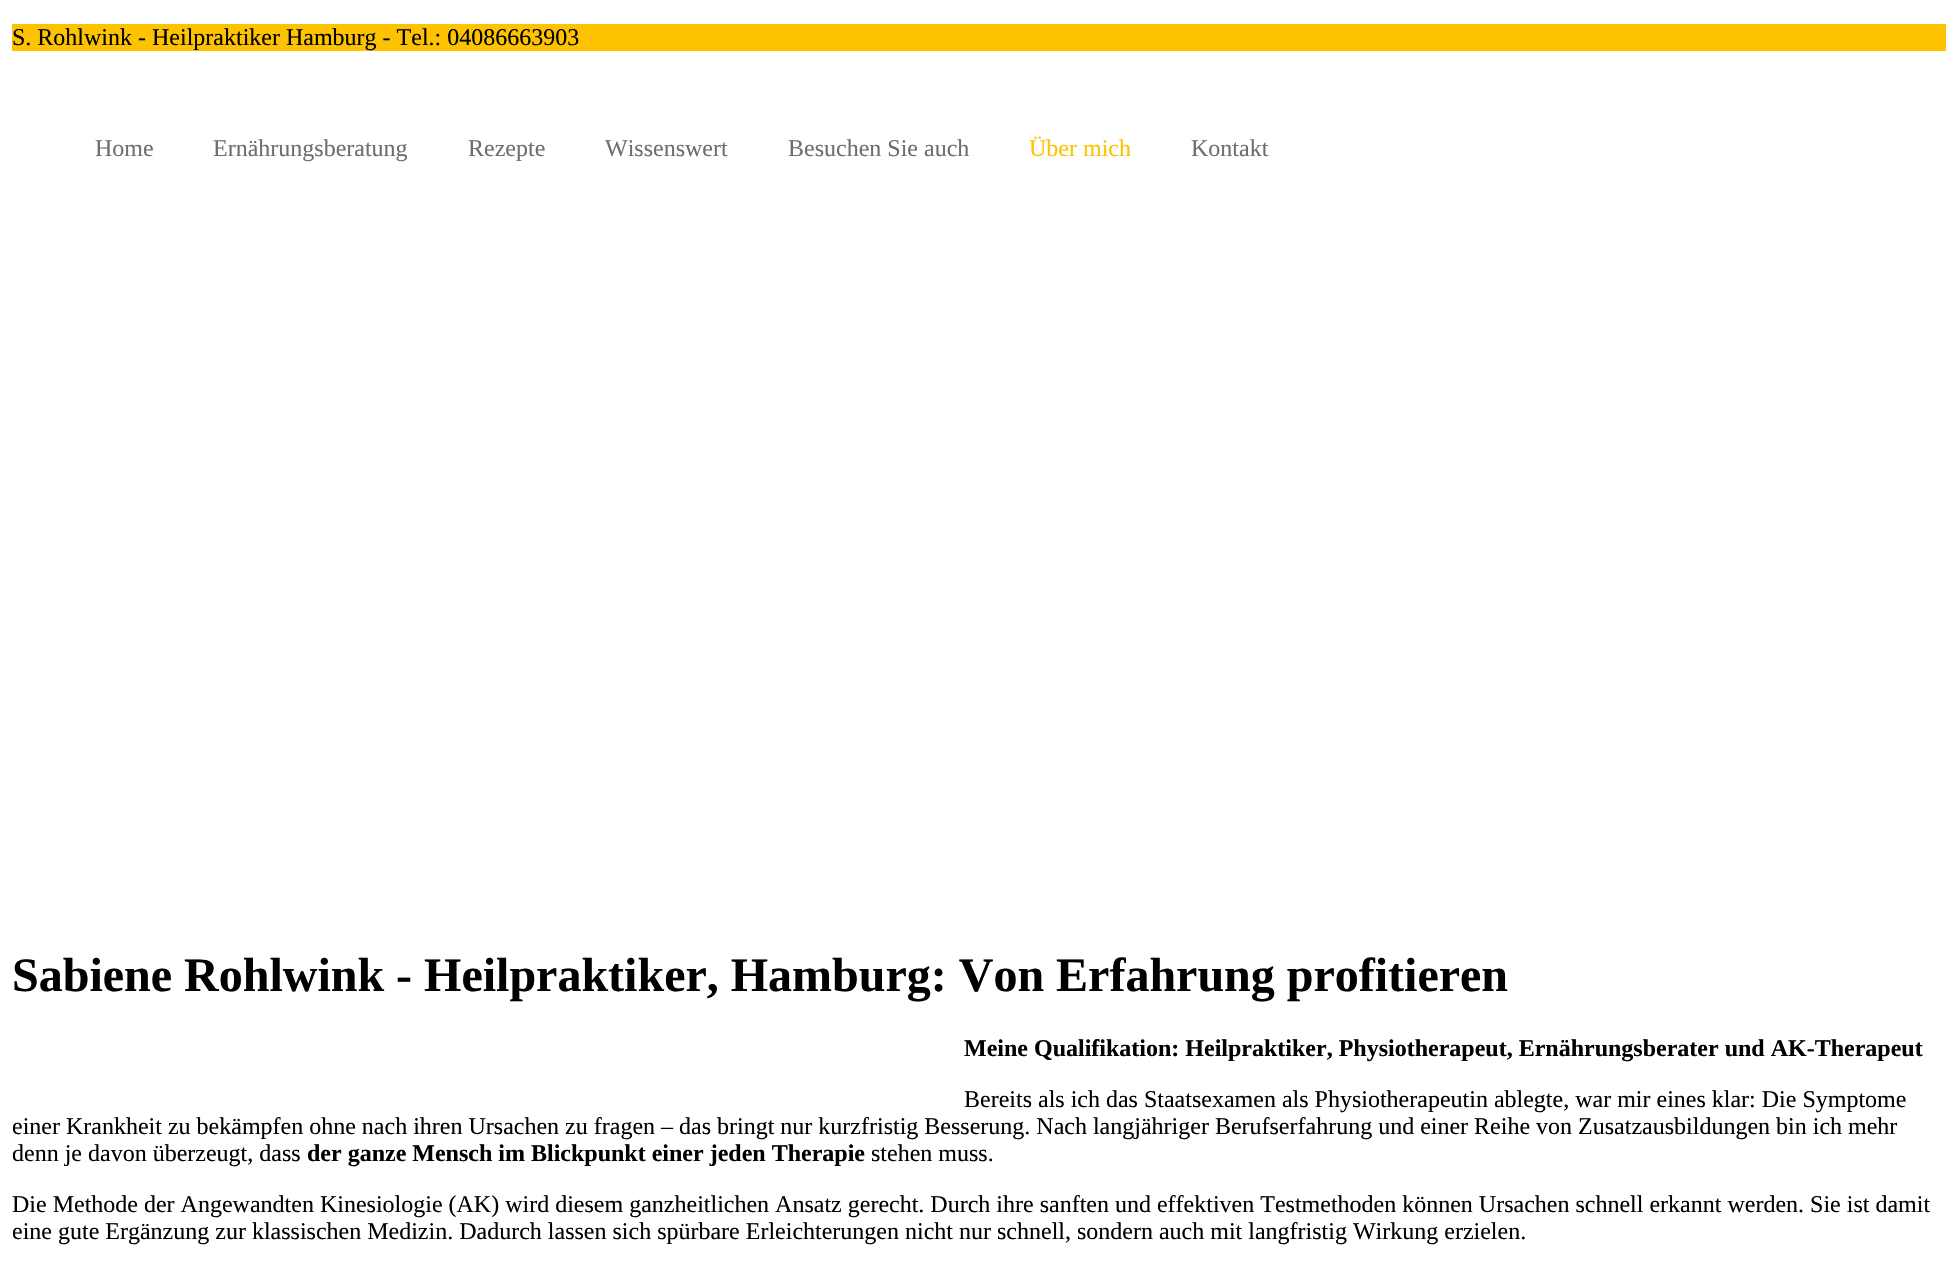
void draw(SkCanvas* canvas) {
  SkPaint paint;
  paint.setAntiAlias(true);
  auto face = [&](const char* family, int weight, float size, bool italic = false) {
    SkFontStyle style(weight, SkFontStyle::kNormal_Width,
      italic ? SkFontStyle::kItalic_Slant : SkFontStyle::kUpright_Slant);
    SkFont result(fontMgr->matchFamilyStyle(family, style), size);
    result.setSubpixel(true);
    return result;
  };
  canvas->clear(0xffffffff);
  paint.setColor(0xfffdc300);
  canvas->drawRect(SkRect::MakeXYWH(12, 24, 1934, 27), paint);
  auto f0 = face("Liberation Serif", 400, 24);
  paint.setColor(0xff000000);
  canvas->drawString("S. Rohlwink - Heilpraktiker Hamburg - Tel.: 04086663903", 12, 45, f0, paint);
  paint.setColor(0xff6e6e6e);
  {
    const struct { const char* s; float x, y; } items[] = {
      {"Home", 95, 156},
      {"Ernährungsberatung", 213, 156},
      {"Rezepte", 468, 156},
      {"Wissenswert", 605, 156},
      {"Besuchen Sie auch", 788, 156},
    };
    for (auto [s, x, y] : items) {
      canvas->drawString(s, x, y, f0, paint);
    }
  }
  paint.setColor(0xfffdc300);
  canvas->drawString("Über mich", 1029, 156, f0, paint);
  paint.setColor(0xff6e6e6e);
  canvas->drawString("Kontakt", 1191, 156, f0, paint);
  auto f1 = face("Liberation Serif", 700, 48);
  paint.setColor(0xff000000);
  canvas->drawString("Sabiene Rohlwink - Heilpraktiker, Hamburg: Von Erfahrung profitieren", 12, 991, f1, paint);
  auto f2 = face("Liberation Serif", 700, 24);
  canvas->drawString("Meine Qualifikation: Heilpraktiker, Physiotherapeut, Ernährungsberater und AK-Therapeut", 964, 1056, f2, paint);
  {
    const struct { const char* s; float x, y; } items[] = {
      {"Bereits als ich das Staatsexamen als Physiotherapeutin ablegte, war mir eines klar: Die Symptome", 964, 1107},
      {"einer Krankheit zu bekämpfen ohne nach ihren Ursachen zu fragen – das bringt nur kurzfristig Besserung. Nach langjähriger Berufserfahrung und einer Reihe von Zusatzausbildungen bin ich mehr", 12, 1134},
      {"denn je davon überzeugt, dass", 12, 1161},
    };
    for (auto [s, x, y] : items) {
      canvas->drawString(s, x, y, f0, paint);
    }
  }
  canvas->drawString("der ganze Mensch im Blickpunkt einer jeden Therapie", 307, 1161, f2, paint);
  {
    const struct { const char* s; float x, y; } items[] = {
      {"stehen muss.", 871, 1161},
      {"Die Methode der Angewandten Kinesiologie (AK) wird diesem ganzheitlichen Ansatz gerecht. Durch ihre sanften und effektiven Testmethoden können Ursachen schnell erkannt werden. Sie ist damit", 12, 1212},
      {"eine gute Ergänzung zur klassischen Medizin. Dadurch lassen sich spürbare Erleichterungen nicht nur schnell, sondern auch mit langfristig Wirkung erzielen.", 12, 1239},
    };
    for (auto [s, x, y] : items) {
      canvas->drawString(s, x, y, f0, paint);
    }
  }
}
